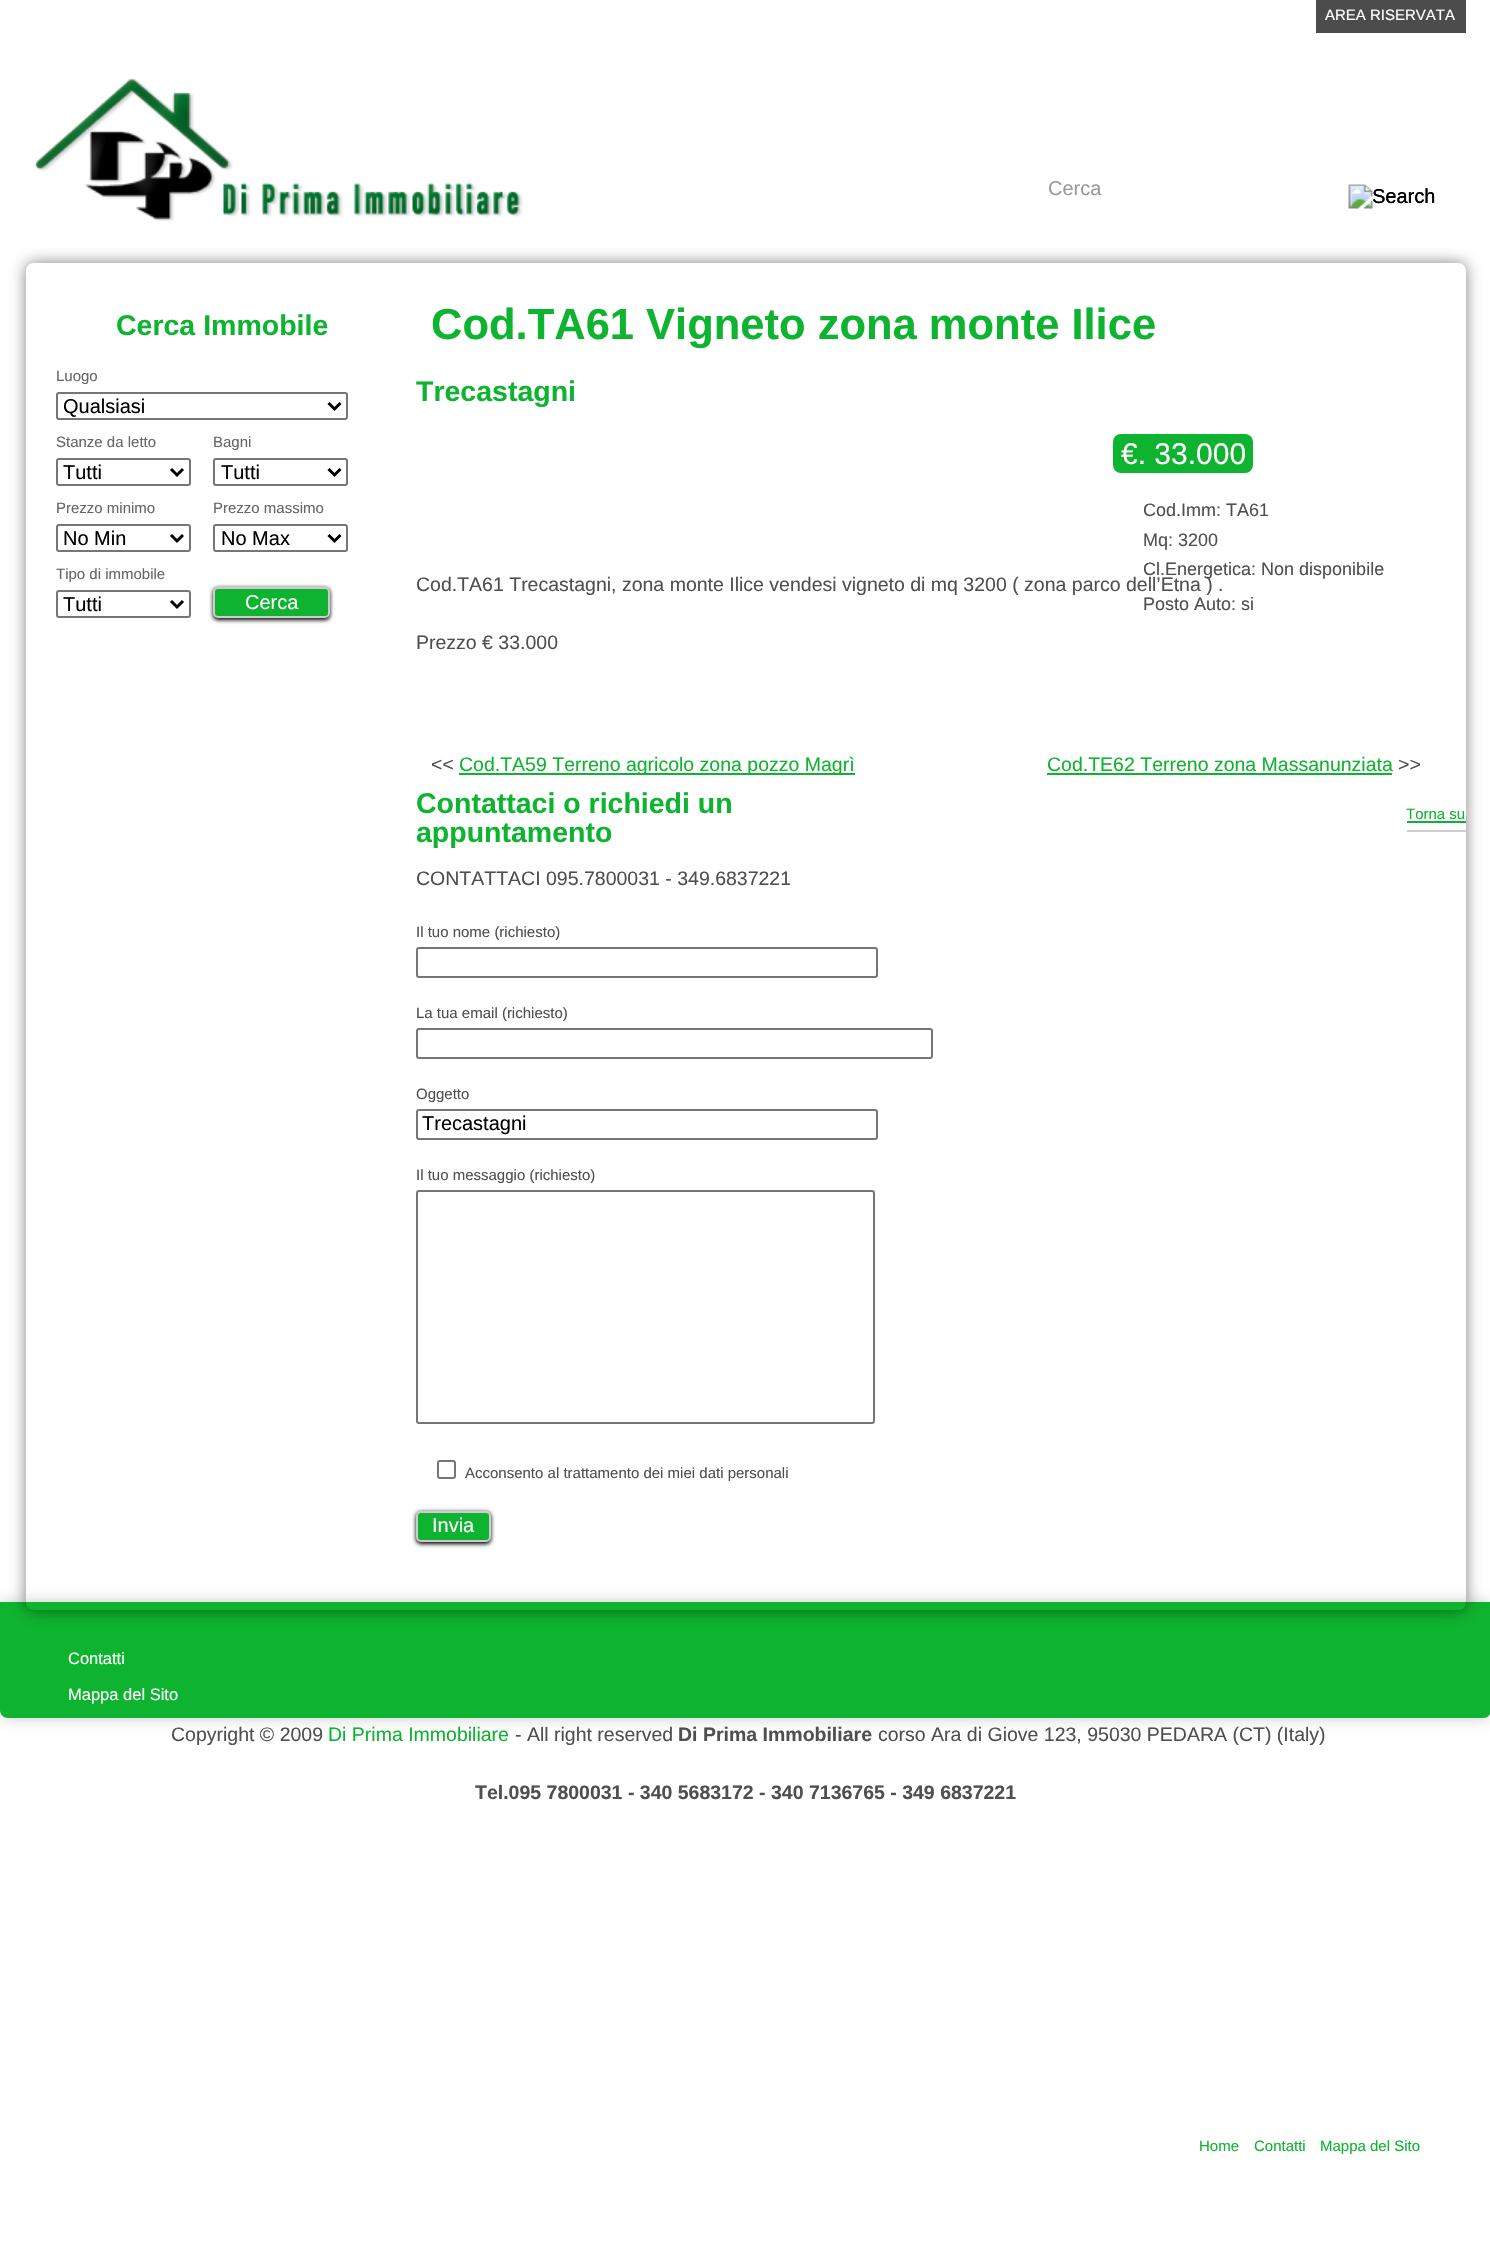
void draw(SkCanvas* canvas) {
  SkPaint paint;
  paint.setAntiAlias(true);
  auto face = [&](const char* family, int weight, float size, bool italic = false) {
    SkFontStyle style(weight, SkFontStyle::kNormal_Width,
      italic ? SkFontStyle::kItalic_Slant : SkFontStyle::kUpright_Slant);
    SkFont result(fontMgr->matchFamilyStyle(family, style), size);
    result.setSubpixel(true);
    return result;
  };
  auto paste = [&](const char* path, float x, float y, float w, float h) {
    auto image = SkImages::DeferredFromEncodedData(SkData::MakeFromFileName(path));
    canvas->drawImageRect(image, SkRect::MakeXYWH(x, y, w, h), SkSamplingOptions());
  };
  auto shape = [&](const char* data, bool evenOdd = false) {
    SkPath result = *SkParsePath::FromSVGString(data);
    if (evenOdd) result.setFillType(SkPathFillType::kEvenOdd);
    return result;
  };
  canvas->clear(0xffffffff);
  paint.setColor(0xff4c4c4c);
  canvas->drawRect(SkRect::MakeXYWH(1316, 0, 150, 33), paint);
  paste("img/1.png", 35, 78, 488, 144);
  paste("img/2.png", 1348, 184, 87, 25);
  paint.setColor(0x33000000);
  paint.setMaskFilter(SkMaskFilter::MakeBlur(kNormal_SkBlurStyle, 7.5f));
  canvas->drawRoundRect(SkRect::MakeXYWH(0, 1602, 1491, 116), 8, 8, paint);
  paint.setMaskFilter(nullptr);
  paint.setColor(0xff0eb32f);
  canvas->drawPath(shape("M0 1602H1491V1710C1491 1714.5 1487.5 1718 1483 1718H8C3.5 1718 0 1714.5 0 1710Z"), paint);
  canvas->save();
  canvas->clipPath(shape("M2 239H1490V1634H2ZM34 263H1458C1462.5 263 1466 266.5 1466 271V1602C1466 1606.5 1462.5 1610 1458 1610H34C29.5 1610 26 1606.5 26 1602V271C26 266.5 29.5 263 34 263Z", true), true);
  paint.setColor(0x80000000);
  paint.setMaskFilter(SkMaskFilter::MakeBlur(kNormal_SkBlurStyle, 7.5f));
  canvas->drawRoundRect(SkRect::MakeXYWH(26, 263, 1440, 1347), 8, 8, paint);
  paint.setMaskFilter(nullptr);
  canvas->restore();
  paint.setStroke(true);
  paint.setStrokeWidth(2);
  paint.setColor(0xff767676);
  canvas->drawRoundRect(SkRect::MakeXYWH(57, 393, 290, 26), 2, 2, paint);
  paint.setStrokeWidth(3);
  paint.setColor(0xff000000);
  canvas->drawPath(shape("M328.5 403L334.5 409L340.5 403"), paint);
  paint.setStrokeWidth(2);
  paint.setColor(0xff767676);
  canvas->drawRoundRect(SkRect::MakeXYWH(57, 459, 133, 26), 2, 2, paint);
  paint.setStrokeWidth(3);
  paint.setColor(0xff000000);
  canvas->drawPath(shape("M171 469L177 475L183 469"), paint);
  paint.setStrokeWidth(2);
  paint.setColor(0xff767676);
  canvas->drawRoundRect(SkRect::MakeXYWH(214, 459, 133, 26), 2, 2, paint);
  paint.setStrokeWidth(3);
  paint.setColor(0xff000000);
  canvas->drawPath(shape("M328.5 469L334.5 475L340.5 469"), paint);
  paint.setStrokeWidth(2);
  paint.setColor(0xff767676);
  canvas->drawRoundRect(SkRect::MakeXYWH(57, 525, 133, 26), 2, 2, paint);
  paint.setStrokeWidth(3);
  paint.setColor(0xff000000);
  canvas->drawPath(shape("M171 535L177 541L183 535"), paint);
  paint.setStrokeWidth(2);
  paint.setColor(0xff767676);
  canvas->drawRoundRect(SkRect::MakeXYWH(214, 525, 133, 26), 2, 2, paint);
  paint.setStrokeWidth(3);
  paint.setColor(0xff000000);
  canvas->drawPath(shape("M328.5 535L334.5 541L340.5 535"), paint);
  paint.setStrokeWidth(2);
  paint.setColor(0xff767676);
  canvas->drawRoundRect(SkRect::MakeXYWH(57, 591, 133, 26), 2, 2, paint);
  paint.setStrokeWidth(3);
  paint.setColor(0xff000000);
  canvas->drawPath(shape("M171 601L177 607L183 601"), paint);
  paint.setStroke(false);
  paint.setMaskFilter(SkMaskFilter::MakeBlur(kNormal_SkBlurStyle, 2));
  canvas->drawRoundRect(SkRect::MakeXYWH(213, 588, 117, 32), 5, 5, paint);
  paint.setMaskFilter(nullptr);
  paint.setColor(0xff0eb32f);
  canvas->drawRoundRect(SkRect::MakeXYWH(214, 588, 115, 29), 4, 4, paint);
  paint.setStroke(true);
  paint.setStrokeWidth(2);
  paint.setColor(0xffcccccc);
  canvas->drawRoundRect(SkRect::MakeXYWH(214, 588, 115, 29), 4, 4, paint);
  paint.setStroke(false);
  paint.setColor(0xff0eb32f);
  canvas->drawRoundRect(SkRect::MakeXYWH(1113, 434, 140, 39), 8, 8, paint);
  canvas->drawRect(SkRect::MakeXYWH(459, 773, 396, 2), paint);
  canvas->drawRect(SkRect::MakeXYWH(1047, 773, 345, 2), paint);
  paint.setStroke(true);
  paint.setColor(0xff767676);
  canvas->drawRoundRect(SkRect::MakeXYWH(417, 948, 460, 29), 2, 2, paint);
  canvas->drawRoundRect(SkRect::MakeXYWH(417, 1029, 515, 29), 2, 2, paint);
  canvas->drawRoundRect(SkRect::MakeXYWH(417, 1110, 460, 29), 2, 2, paint);
  canvas->drawRoundRect(SkRect::MakeXYWH(417, 1191, 457, 232), 2, 2, paint);
  canvas->drawRoundRect(SkRect::MakeXYWH(438, 1461, 17, 17), 2, 2, paint);
  paint.setStroke(false);
  paint.setColor(0xff000000);
  paint.setMaskFilter(SkMaskFilter::MakeBlur(kNormal_SkBlurStyle, 2));
  canvas->drawRoundRect(SkRect::MakeXYWH(416, 1512, 75, 32), 5, 5, paint);
  paint.setMaskFilter(nullptr);
  paint.setColor(0xff0eb32f);
  canvas->drawRoundRect(SkRect::MakeXYWH(417, 1512, 73, 29), 4, 4, paint);
  paint.setStroke(true);
  paint.setColor(0xffcccccc);
  canvas->drawRoundRect(SkRect::MakeXYWH(417, 1512, 73, 29), 4, 4, paint);
  paint.setStroke(false);
  paint.setColor(0xffcfcfcf);
  canvas->drawRect(SkRect::MakeXYWH(1407, 830, 59, 2), paint);
  paint.setColor(0xff0eb32f);
  canvas->drawRect(SkRect::MakeXYWH(1407, 821, 59, 2), paint);
  auto f0 = face("Liberation Sans", 400, 15);
  paint.setColor(0xffffffff);
  canvas->drawString("AREA RISERVATA", 1325, 20, f0, paint);
  auto f1 = face("Liberation Sans", 400, 20);
  paint.setColor(0xff999999);
  canvas->drawString("Cerca", 1048, 195, f1, paint);
  paint.setColor(0xff000000);
  canvas->drawString("Search", 1372, 203, f1, paint);
  auto f2 = face("Liberation Sans", 700, 28.5f);
  paint.setColor(0xff0eb32f);
  canvas->drawString("Cerca Immobile", 116, 335, f2, paint);
  paint.setColor(0xff666666);
  canvas->drawString("Luogo", 56, 381, f0, paint);
  paint.setColor(0xff000000);
  canvas->drawString("Qualsiasi", 63, 413, f1, paint);
  paint.setColor(0xff666666);
  canvas->drawString("Stanze da letto", 56, 447, f0, paint);
  paint.setColor(0xff000000);
  canvas->drawString("Tutti", 63, 479, f1, paint);
  paint.setColor(0xff666666);
  canvas->drawString("Bagni", 213, 447, f0, paint);
  paint.setColor(0xff000000);
  canvas->drawString("Tutti", 221, 479, f1, paint);
  paint.setColor(0xff666666);
  canvas->drawString("Prezzo minimo", 56, 513, f0, paint);
  paint.setColor(0xff000000);
  canvas->drawString("No Min", 63, 545, f1, paint);
  paint.setColor(0xff666666);
  canvas->drawString("Prezzo massimo", 213, 513, f0, paint);
  paint.setColor(0xff000000);
  canvas->drawString("No Max", 221, 545, f1, paint);
  paint.setColor(0xff666666);
  canvas->drawString("Tipo di immobile", 56, 579, f0, paint);
  paint.setColor(0xff000000);
  canvas->drawString("Tutti", 63, 611, f1, paint);
  paint.setColor(0xffffffff);
  canvas->drawString("Cerca", 245, 609, f1, paint);
  auto f3 = face("Liberation Sans", 700, 43.5f);
  paint.setColor(0xff0eb32f);
  canvas->drawString("Cod.TA61 Vigneto zona monte Ilice", 431, 339, f3, paint);
  canvas->drawString("Trecastagni", 416, 401, f2, paint);
  auto f4 = face("Liberation Sans", 400, 19.5f);
  paint.setColor(0xff4f4f4f);
  canvas->drawString("Cod.TA61 Trecastagni, zona monte Ilice vendesi vigneto di mq 3200 ( zona parco dell’Etna ) .", 416, 591, f4, paint);
  auto f5 = face("Liberation Sans", 400, 30);
  paint.setColor(0xffffffff);
  canvas->drawString("€. 33.000", 1121, 464, f5, paint);
  auto f6 = face("Liberation Sans", 400, 18);
  paint.setColor(0xff4f4f4f);
  {
    const struct { const char* s; float x, y; } items[] = {
      {"Cod.Imm: TA61", 1143, 516},
      {"Mq: 3200", 1143, 546},
      {"Cl.Energetica: Non disponibile", 1143, 575},
      {"Posto Auto: si", 1143, 610},
    };
    for (auto [s, x, y] : items) {
      canvas->drawString(s, x, y, f6, paint);
    }
  }
  canvas->drawString("Prezzo € 33.000", 416, 649, f4, paint);
  canvas->drawString("<<", 431, 771, f4, paint);
  paint.setColor(0xff0eb32f);
  canvas->drawString("Cod.TA59 Terreno agricolo zona pozzo Magrì", 459, 771, f4, paint);
  canvas->drawString("Cod.TE62 Terreno zona Massanunziata", 1047, 771, f4, paint);
  paint.setColor(0xff4f4f4f);
  canvas->drawString(">>", 1398, 771, f4, paint);
  paint.setColor(0xff0eb32f);
  canvas->drawString("Contattaci o richiedi un", 416, 813, f2, paint);
  canvas->drawString("appuntamento", 416, 842, f2, paint);
  paint.setColor(0xff4f4f4f);
  canvas->drawString("CONTATTACI 095.7800031 - 349.6837221", 416, 885, f4, paint);
  {
    const struct { const char* s; float x, y; } items[] = {
      {"Il tuo nome (richiesto)", 416, 937},
      {"La tua email (richiesto)", 416, 1018},
      {"Oggetto", 416, 1099},
    };
    for (auto [s, x, y] : items) {
      canvas->drawString(s, x, y, f0, paint);
    }
  }
  paint.setColor(0xff000000);
  canvas->drawString("Trecastagni", 422, 1130, f1, paint);
  paint.setColor(0xff4f4f4f);
  canvas->drawString("Il tuo messaggio (richiesto)", 416, 1180, f0, paint);
  canvas->drawString("Acconsento al trattamento dei miei dati personali", 465, 1478, f0, paint);
  paint.setColor(0xffffffff);
  canvas->drawString("Invia", 432, 1532, f1, paint);
  paint.setColor(0xff0eb32f);
  canvas->drawString("Torna su", 1406, 819, f0, paint);
  auto f7 = face("Liberation Sans", 400, 16.5f);
  paint.setColor(0xffffffff);
  canvas->drawString("Contatti", 68, 1664, f7, paint);
  canvas->drawString("Mappa del Sito", 68, 1700, f7, paint);
  paint.setColor(0xff4f4f4f);
  canvas->drawString("Copyright © 2009", 171, 1741, f4, paint);
  paint.setColor(0xff0eb32f);
  canvas->drawString("Di Prima Immobiliare", 328, 1741, f4, paint);
  paint.setColor(0xff4f4f4f);
  canvas->drawString("- All right reserved", 515, 1741, f4, paint);
  auto f8 = face("Liberation Sans", 700, 19.5f);
  canvas->drawString("Di Prima Immobiliare", 678, 1741, f8, paint);
  canvas->drawString("corso Ara di Giove 123, 95030 PEDARA (CT) (Italy)", 878, 1741, f4, paint);
  canvas->drawString("Tel.095 7800031 - 340 5683172 - 340 7136765 - 349 6837221", 475, 1799, f8, paint);
  paint.setColor(0xff0eb32f);
  {
    const struct { const char* s; float x, y; } items[] = {
      {"Home", 1199, 2151},
      {"Contatti", 1254, 2151},
      {"Mappa del Sito", 1320, 2151},
    };
    for (auto [s, x, y] : items) {
      canvas->drawString(s, x, y, f0, paint);
    }
  }
}
